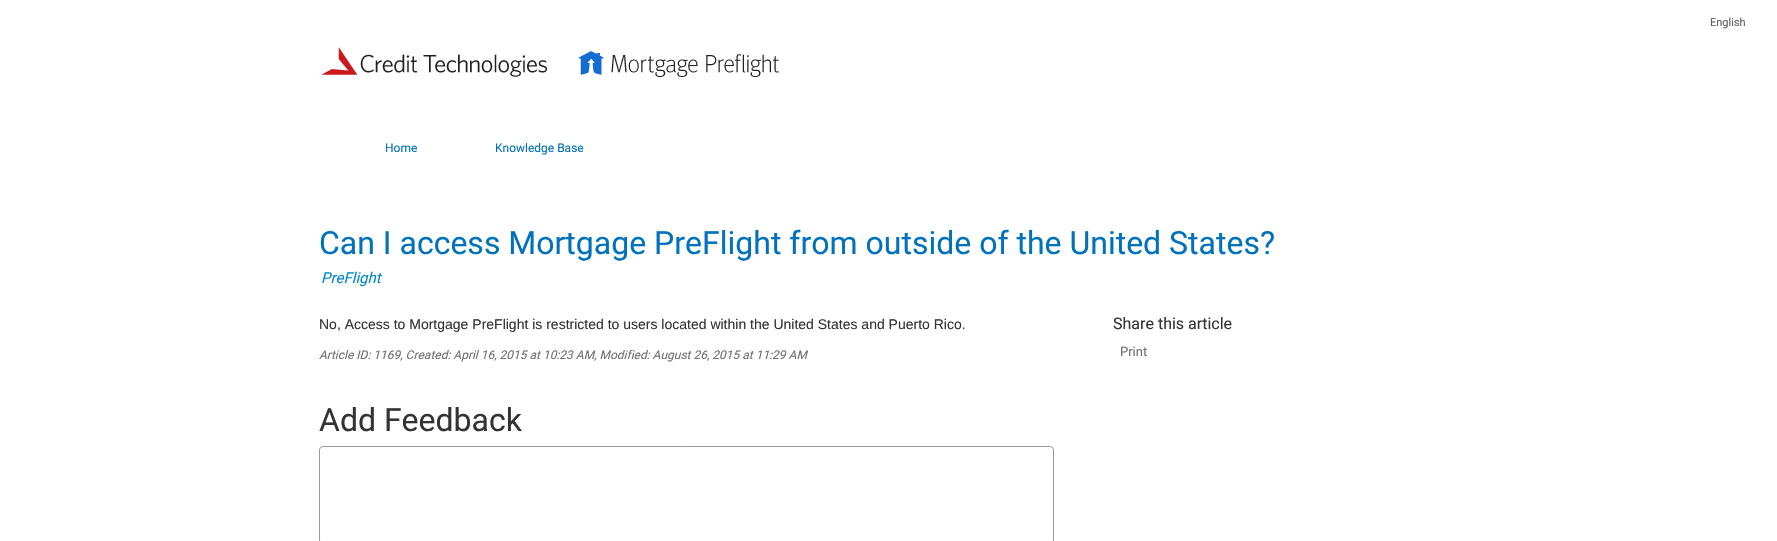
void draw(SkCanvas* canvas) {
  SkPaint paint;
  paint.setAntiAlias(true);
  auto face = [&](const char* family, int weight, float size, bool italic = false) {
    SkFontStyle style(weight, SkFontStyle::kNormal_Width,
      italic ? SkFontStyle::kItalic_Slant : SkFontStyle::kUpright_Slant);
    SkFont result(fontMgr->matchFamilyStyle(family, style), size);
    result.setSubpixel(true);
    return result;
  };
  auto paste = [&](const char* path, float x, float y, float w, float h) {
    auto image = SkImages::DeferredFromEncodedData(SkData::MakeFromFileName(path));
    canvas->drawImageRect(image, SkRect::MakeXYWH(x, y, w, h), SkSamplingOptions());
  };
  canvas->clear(0xffffffff);
  paste("img/1.png", 322, 47, 457, 30);
  paint.setStroke(true);
  paint.setStrokeWidth(1);
  paint.setColor(0xff999999);
  canvas->drawRoundRect(SkRect::MakeXYWH(319.5f, 446.5f, 734, 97), 3.5f, 3.5f, paint);
  auto f0 = face("Roboto", 400, 11);
  paint.setStroke(false);
  paint.setColor(0xff5d5d5d);
  canvas->drawString("English", 1710, 26, f0, paint);
  auto f1 = face("Roboto", 400, 12);
  paint.setColor(0xff0071bc);
  canvas->drawString("Home", 385, 152, f1, paint);
  canvas->drawString("Knowledge Base", 495, 152, f1, paint);
  auto f2 = face("Roboto", 400, 32);
  canvas->drawString("Can I access Mortgage PreFlight from outside of the United States?", 319, 254, f2, paint);
  auto f3 = face("Roboto", 400, 15, true);
  paint.setColor(0xff0088cc);
  canvas->drawString("PreFlight", 321, 283, f3, paint);
  auto f4 = face("Liberation Sans", 400, 14);
  paint.setColor(0xff333333);
  canvas->drawString("No, Access to Mortgage PreFlight is restricted to users located within the United States and Puerto Rico.", 319, 329, f4, paint);
  auto f5 = face("Roboto", 400, 12, true);
  paint.setColor(0xff707070);
  canvas->drawString("Article ID: 1169, Created: April 16, 2015 at 10:23 AM, Modified: August 26, 2015 at 11:29 AM", 319, 359, f5, paint);
  paint.setColor(0xff333333);
  canvas->drawString("Add Feedback", 319, 431, f2, paint);
  auto f6 = face("Roboto", 400, 16);
  canvas->drawString("Share this article", 1113, 329, f6, paint);
  auto f7 = face("Roboto", 400, 13);
  paint.setColor(0xff707070);
  canvas->drawString("Print", 1120, 356, f7, paint);
}
